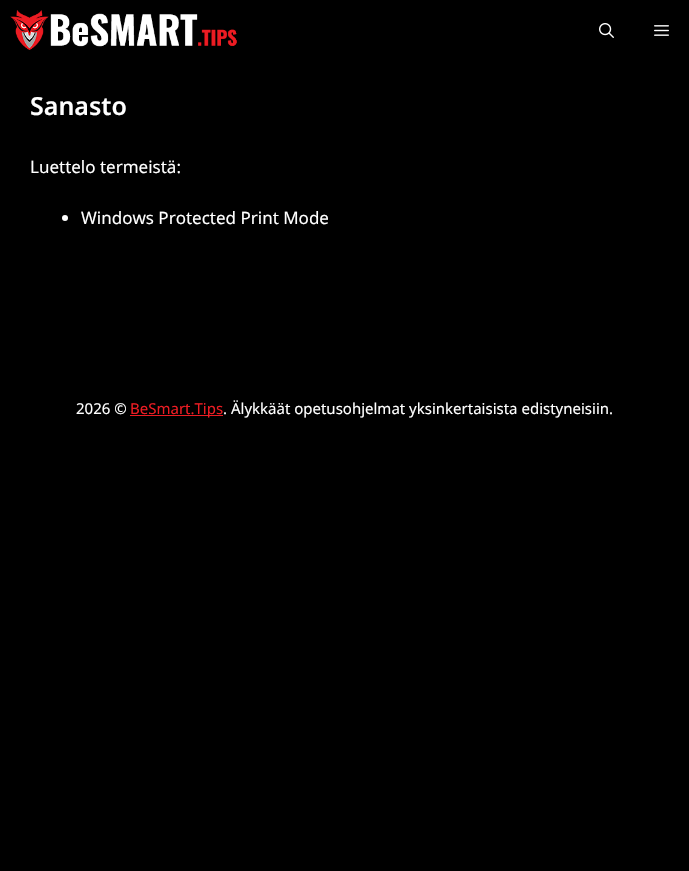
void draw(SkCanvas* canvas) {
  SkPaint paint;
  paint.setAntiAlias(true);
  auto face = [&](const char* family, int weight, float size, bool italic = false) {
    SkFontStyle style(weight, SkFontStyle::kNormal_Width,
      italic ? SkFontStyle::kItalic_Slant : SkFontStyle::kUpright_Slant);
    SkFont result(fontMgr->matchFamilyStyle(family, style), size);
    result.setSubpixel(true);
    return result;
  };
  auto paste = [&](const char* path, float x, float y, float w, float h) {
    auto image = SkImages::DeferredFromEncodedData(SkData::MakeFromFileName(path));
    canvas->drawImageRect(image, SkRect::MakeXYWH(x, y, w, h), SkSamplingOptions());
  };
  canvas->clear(0xff000000);
  paste("img/1.png", 10, 10, 227, 40);
  paste("img/2.png", 599, 23, 15, 15);
  paste("img/3.png", 654, 25, 15, 11);
  paint.setColor(0xffffffff);
  canvas->drawCircle(65, 218, 3, paint);
  paint.setColor(0xffec1c23);
  canvas->drawRect(SkRect::MakeXYWH(130, 415, 93, 1), paint);
  auto f0 = face("Noto Sans", 600, 25);
  paint.setColor(0xffffffff);
  canvas->drawString("Sanasto", 30, 115, f0, paint);
  auto f1 = face("Noto Sans", 400, 17);
  canvas->drawString("Luettelo termeistä:", 30, 173, f1, paint);
  canvas->drawString("Windows Protected Print Mode", 81, 224, f1, paint);
  auto f2 = face("Noto Sans", 400, 15);
  canvas->drawString("2026 ©", 76, 414, f2, paint);
  paint.setColor(0xffec1c23);
  canvas->drawString("BeSmart.Tips", 130, 414, f2, paint);
  paint.setColor(0xffffffff);
  canvas->drawString(". Älykkäät opetusohjelmat yksinkertaisista edistyneisiin.", 223, 414, f2, paint);
}
